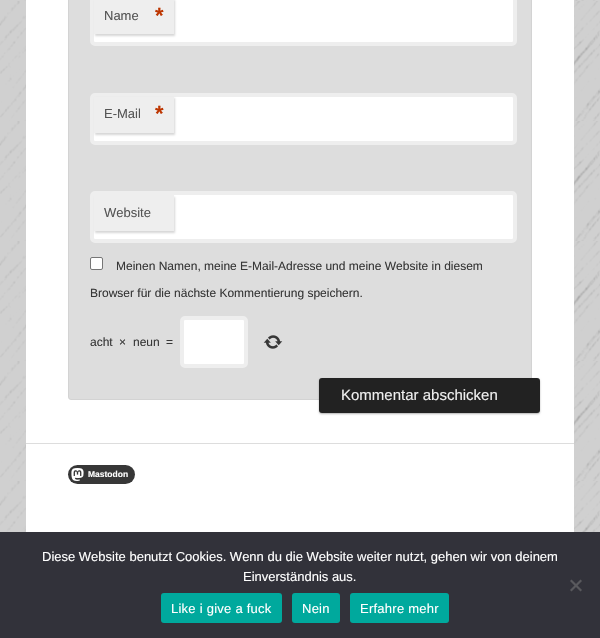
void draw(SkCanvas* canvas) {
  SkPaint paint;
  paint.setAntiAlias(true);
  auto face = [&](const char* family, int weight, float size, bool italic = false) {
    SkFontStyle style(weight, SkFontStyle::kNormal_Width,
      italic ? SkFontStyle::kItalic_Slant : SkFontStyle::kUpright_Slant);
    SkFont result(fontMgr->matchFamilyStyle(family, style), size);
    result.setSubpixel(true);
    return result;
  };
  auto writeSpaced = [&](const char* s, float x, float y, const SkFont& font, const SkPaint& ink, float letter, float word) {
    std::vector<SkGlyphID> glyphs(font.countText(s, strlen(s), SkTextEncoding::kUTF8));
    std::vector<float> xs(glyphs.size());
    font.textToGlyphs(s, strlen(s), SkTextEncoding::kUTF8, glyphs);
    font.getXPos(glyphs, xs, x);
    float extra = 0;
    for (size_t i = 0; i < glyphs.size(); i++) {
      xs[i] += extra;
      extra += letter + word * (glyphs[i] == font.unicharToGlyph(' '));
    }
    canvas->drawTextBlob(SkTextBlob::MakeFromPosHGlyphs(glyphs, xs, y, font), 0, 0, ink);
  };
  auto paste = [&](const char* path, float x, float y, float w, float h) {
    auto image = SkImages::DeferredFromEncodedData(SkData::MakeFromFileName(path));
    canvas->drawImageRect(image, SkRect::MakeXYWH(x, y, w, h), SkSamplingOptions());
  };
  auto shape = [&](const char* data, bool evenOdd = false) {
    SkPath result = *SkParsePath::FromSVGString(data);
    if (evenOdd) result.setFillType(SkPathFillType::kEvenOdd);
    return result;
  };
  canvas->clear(0xffffffff);
  paste("img/1.png", 0, 0, 600, 532);
  paint.setColor(0xffffffff);
  canvas->drawRect(SkRect::MakeXYWH(26, 0, 548, 532), paint);
  paint.setColor(0xffdddddd);
  canvas->drawRoundRect(SkRect::MakeXYWH(68.5f, -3.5f, 463, 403), 2.5f, 2.5f, paint);
  paint.setStroke(true);
  paint.setStrokeWidth(1);
  paint.setColor(0xffd3d3d3);
  canvas->drawRoundRect(SkRect::MakeXYWH(68.5f, -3.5f, 463, 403), 2.5f, 2.5f, paint);
  paint.setStroke(false);
  paint.setColor(0xffffffff);
  canvas->drawRoundRect(SkRect::MakeXYWH(92, -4, 423, 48), 3, 3, paint);
  paint.setStroke(true);
  paint.setStrokeWidth(4);
  paint.setColor(0xffeeeeee);
  canvas->drawRoundRect(SkRect::MakeXYWH(92, -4, 423, 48), 3, 3, paint);
  paint.setStroke(false);
  paint.setColor(0xcccccccc);
  paint.setMaskFilter(SkMaskFilter::MakeBlur(kNormal_SkBlurStyle, 1));
  canvas->drawRect(SkRect::MakeXYWH(95, 0, 80, 36), paint);
  paint.setMaskFilter(nullptr);
  paint.setColor(0xffeeeeee);
  canvas->drawRect(SkRect::MakeXYWH(94, 0, 80, 34), paint);
  paint.setColor(0xffffffff);
  canvas->drawRoundRect(SkRect::MakeXYWH(92, 95, 423, 48), 3, 3, paint);
  paint.setStroke(true);
  paint.setColor(0xffeeeeee);
  canvas->drawRoundRect(SkRect::MakeXYWH(92, 95, 423, 48), 3, 3, paint);
  paint.setStroke(false);
  paint.setColor(0xcccccccc);
  paint.setMaskFilter(SkMaskFilter::MakeBlur(kNormal_SkBlurStyle, 1));
  canvas->drawRect(SkRect::MakeXYWH(95, 98, 80, 37), paint);
  paint.setMaskFilter(nullptr);
  paint.setColor(0xffeeeeee);
  canvas->drawRect(SkRect::MakeXYWH(94, 97, 80, 36), paint);
  paint.setColor(0xffffffff);
  canvas->drawRoundRect(SkRect::MakeXYWH(92, 193, 423, 48), 3, 3, paint);
  paint.setStroke(true);
  paint.setColor(0xffeeeeee);
  canvas->drawRoundRect(SkRect::MakeXYWH(92, 193, 423, 48), 3, 3, paint);
  paint.setStroke(false);
  paint.setColor(0xcccccccc);
  paint.setMaskFilter(SkMaskFilter::MakeBlur(kNormal_SkBlurStyle, 1));
  canvas->drawRect(SkRect::MakeXYWH(95, 197, 80, 36), paint);
  paint.setMaskFilter(nullptr);
  paint.setColor(0xffeeeeee);
  canvas->drawRect(SkRect::MakeXYWH(94, 195, 80, 36), paint);
  paint.setColor(0xffffffff);
  canvas->drawRoundRect(SkRect::MakeXYWH(90.5f, 257.5f, 12, 12), 1.5f, 1.5f, paint);
  paint.setStroke(true);
  paint.setStrokeWidth(1);
  paint.setColor(0xff767676);
  canvas->drawRoundRect(SkRect::MakeXYWH(90.5f, 257.5f, 12, 12), 1.5f, 1.5f, paint);
  paint.setStroke(false);
  paint.setColor(0xffffffff);
  canvas->drawRoundRect(SkRect::MakeXYWH(182, 318, 64, 48), 3, 3, paint);
  paint.setStroke(true);
  paint.setStrokeWidth(4);
  paint.setColor(0xffeeeeee);
  canvas->drawRoundRect(SkRect::MakeXYWH(182, 318, 64, 48), 3, 3, paint);
  paste("img/2.png", 263, 335, 20, 14);
  paint.setStroke(false);
  paint.setColor(0x4d000000);
  paint.setMaskFilter(SkMaskFilter::MakeBlur(kNormal_SkBlurStyle, 1));
  canvas->drawRoundRect(SkRect::MakeXYWH(319, 379, 221, 35), 3, 3, paint);
  paint.setMaskFilter(nullptr);
  paint.setColor(0xff222222);
  canvas->drawRoundRect(SkRect::MakeXYWH(319, 378, 221, 35), 3, 3, paint);
  paint.setColor(0xffdddddd);
  canvas->drawRect(SkRect::MakeXYWH(26, 443, 548, 1), paint);
  paint.setColor(0xff373737);
  canvas->drawRoundRect(SkRect::MakeXYWH(68, 465, 67, 19), 9.5f, 9.5f, paint);
  paste("img/3.png", 71, 468, 13, 13);
  paint.setColor(0xff32323a);
  canvas->drawRect(SkRect::MakeXYWH(0, 532, 600, 106), paint);
  paint.setColor(0xff59595d);
  canvas->drawPath(shape("M580.5 579.5L582 581L571.5 591.5L570 590Z"), paint);
  canvas->drawPath(shape("M570 581L571.5 579.5L582 590L580.5 591.5Z"), paint);
  paint.setColor(0xff00a99d);
  canvas->drawRoundRect(SkRect::MakeXYWH(161, 593, 121, 30), 3, 3, paint);
  canvas->drawRoundRect(SkRect::MakeXYWH(292, 593, 48, 30), 3, 3, paint);
  canvas->drawRoundRect(SkRect::MakeXYWH(350, 593, 99, 30), 3, 3, paint);
  auto f0 = face("Liberation Sans", 400, 13);
  paint.setColor(0xff555555);
  canvas->drawString("Name", 104, 20, f0, paint);
  auto f1 = face("Liberation Sans", 700, 22);
  paint.setColor(0xffbd3500);
  canvas->drawString("*", 155, 23, f1, paint);
  paint.setColor(0xff555555);
  canvas->drawString("E-Mail", 104, 118, f0, paint);
  paint.setColor(0xffbd3500);
  canvas->drawString("*", 155, 121, f1, paint);
  paint.setColor(0xff555555);
  canvas->drawString("Website", 104, 217, f0, paint);
  auto f2 = face("Liberation Sans", 400, 12);
  paint.setColor(0xff373737);
  {
    const struct { const char* s; float x, y; } items[] = {
      {"Meinen Namen, meine E-Mail-Adresse und meine Website in diesem", 116, 270},
      {"Browser für die nächste Kommentierung speichern.", 90, 297},
      {"acht", 90, 346},
      {"×", 119, 346},
      {"neun", 133, 346},
      {"=", 166, 346},
    };
    for (auto [s, x, y] : items) {
      canvas->drawString(s, x, y, f2, paint);
    }
  }
  auto f3 = face("Liberation Sans", 400, 15);
  paint.setColor(0xffeeeeee);
  canvas->drawString("Kommentar abschicken", 341, 400, f3, paint);
  auto f4 = face("Liberation Sans", 700, 8.5f);
  paint.setColor(0xffffffff);
  canvas->drawString("Mastodon", 88, 477, f4, paint);
  canvas->drawString("Diese Website benutzt Cookies. Wenn du die Website weiter nutzt, gehen wir von deinem", 42, 561, f0, paint);
  canvas->drawString("Einverständnis aus.", 243, 581, f0, paint);
  {
    const struct { const char* s; float x, y; } items[] = {
      {"Like i give a fuck", 171, 613},
      {"Nein", 302, 613},
      {"Erfahre mehr", 360, 613},
    };
    for (auto [s, x, y] : items) {
      writeSpaced(s, x, y, f0, paint, 0.25f, 0);
    }
  }
}
